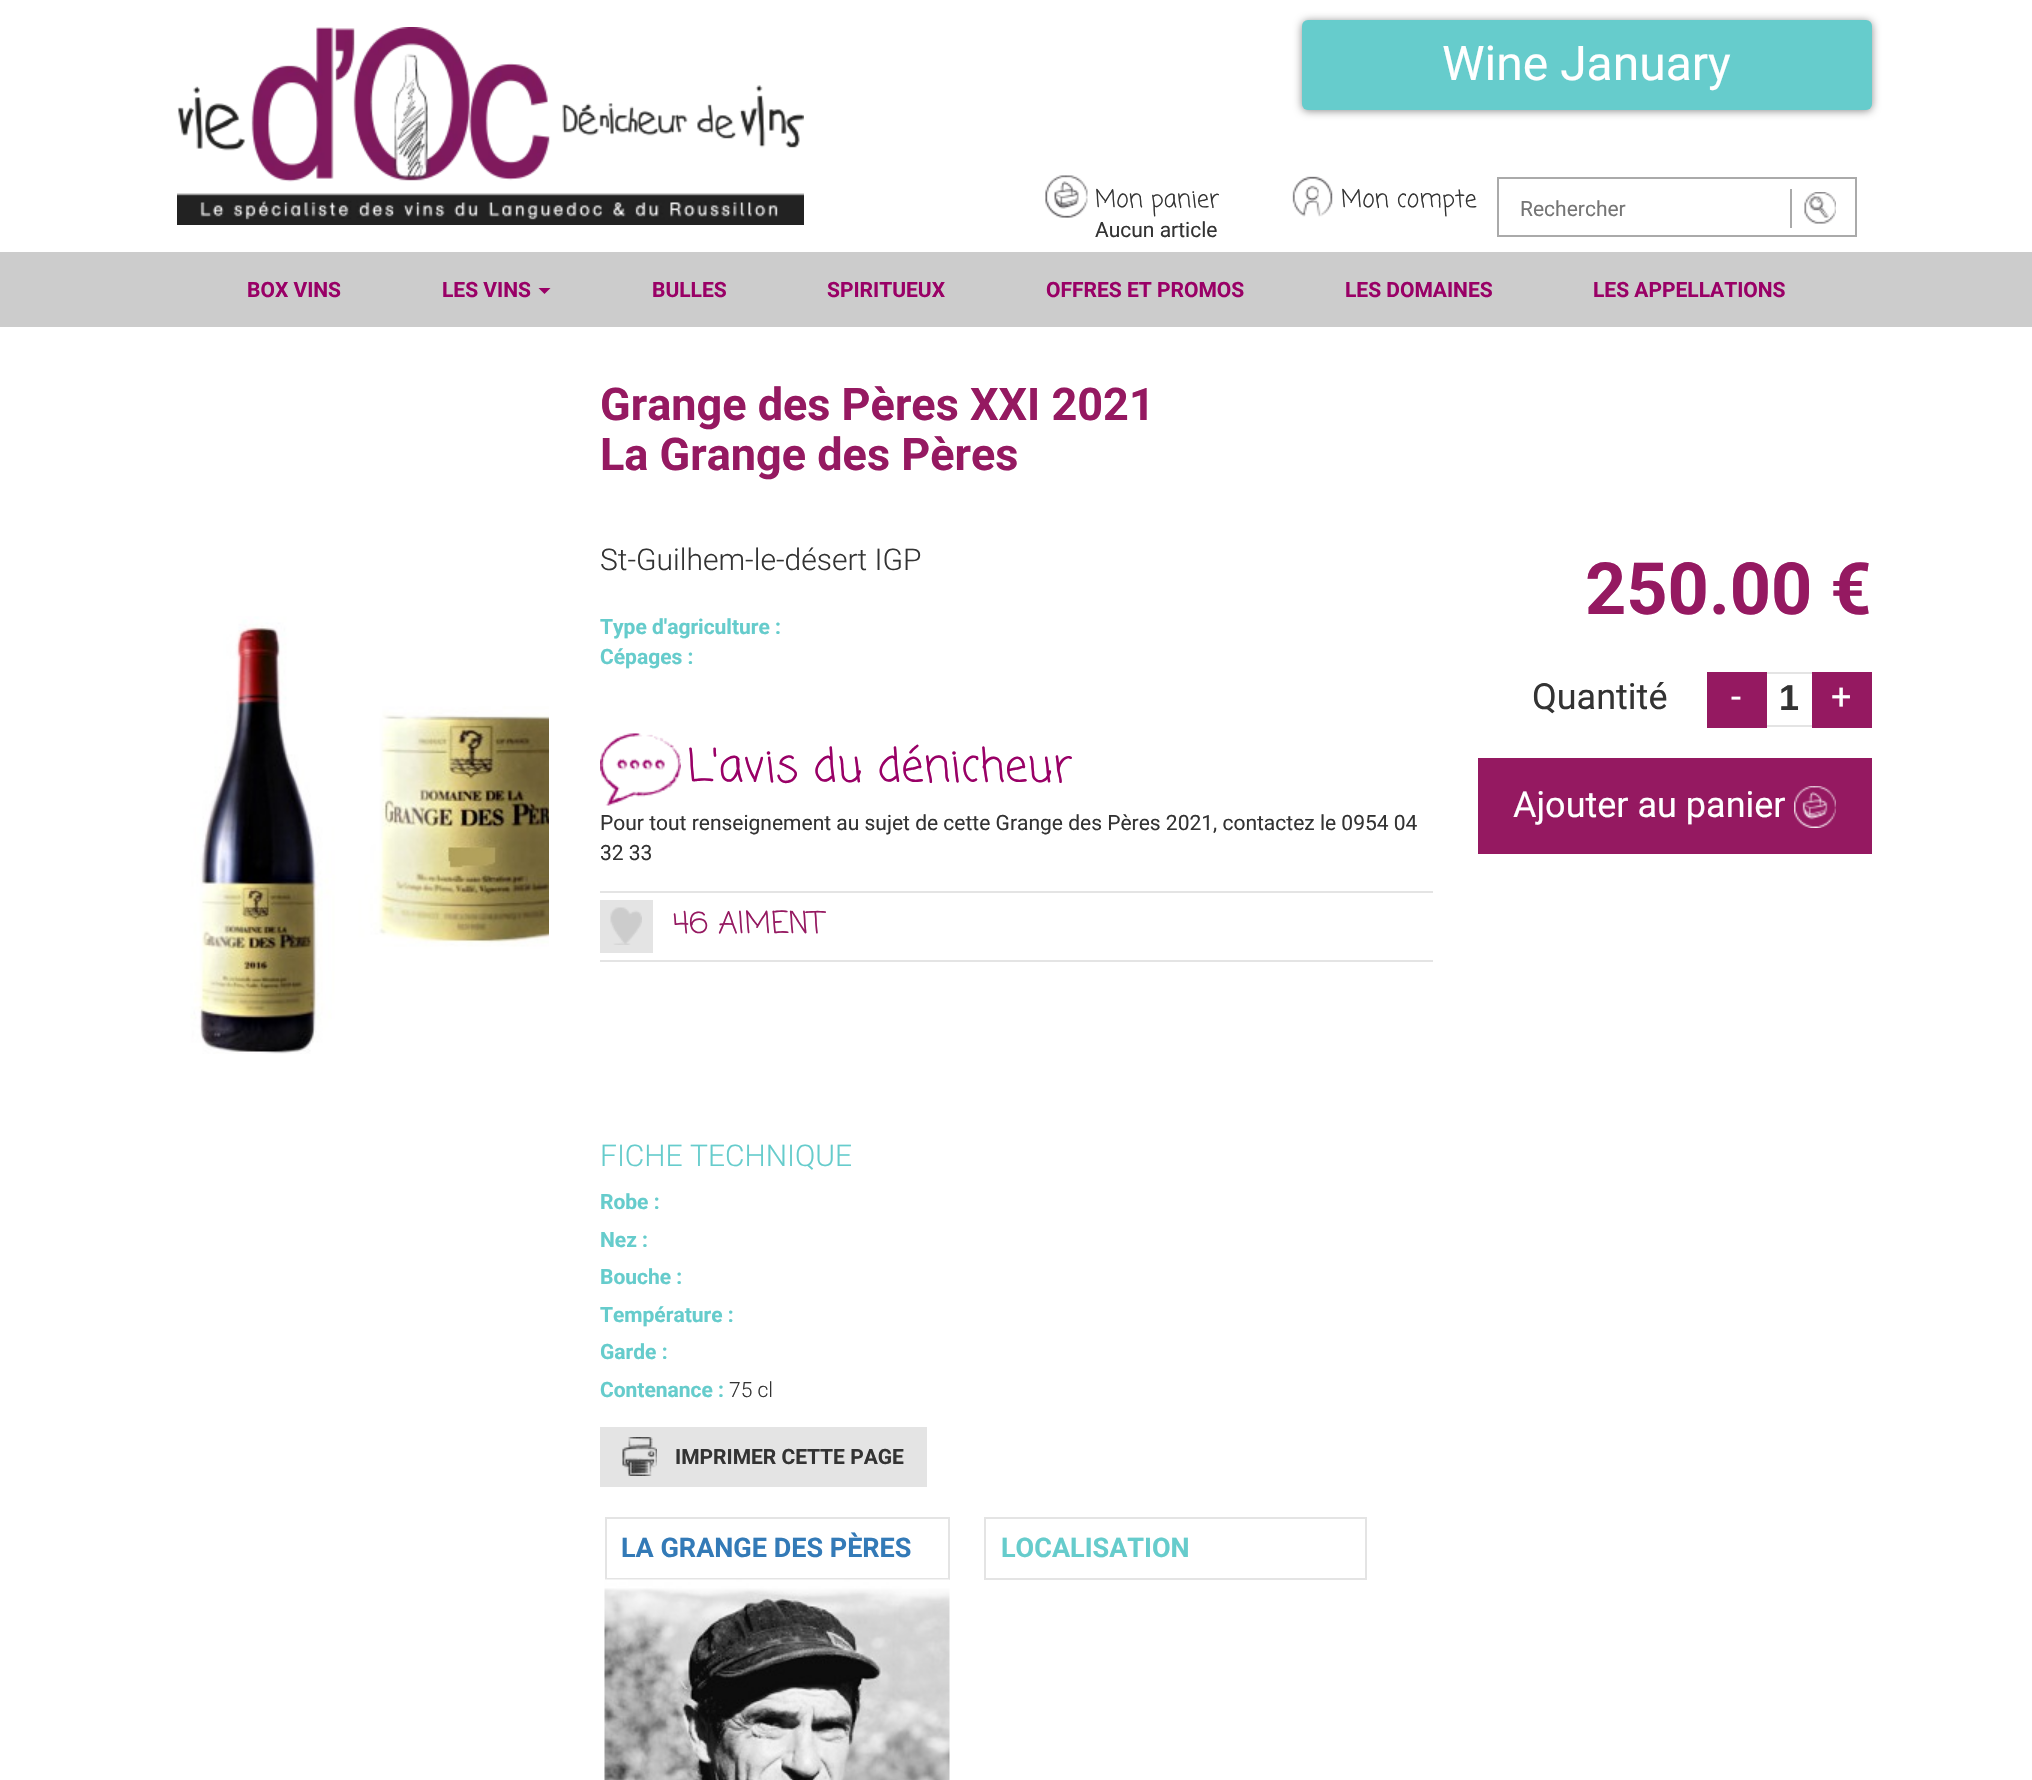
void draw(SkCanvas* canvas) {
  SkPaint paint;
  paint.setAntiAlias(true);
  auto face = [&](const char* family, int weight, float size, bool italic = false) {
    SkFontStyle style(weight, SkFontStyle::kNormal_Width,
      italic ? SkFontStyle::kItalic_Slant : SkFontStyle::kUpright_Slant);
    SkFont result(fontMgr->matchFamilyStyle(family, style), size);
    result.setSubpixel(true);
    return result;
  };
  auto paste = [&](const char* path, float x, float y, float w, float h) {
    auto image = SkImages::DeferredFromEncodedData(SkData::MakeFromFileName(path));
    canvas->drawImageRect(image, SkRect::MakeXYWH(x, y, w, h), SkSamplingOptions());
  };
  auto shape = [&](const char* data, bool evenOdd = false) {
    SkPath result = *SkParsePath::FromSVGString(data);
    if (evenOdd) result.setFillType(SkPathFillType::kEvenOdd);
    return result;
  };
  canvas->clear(0xffffffff);
  paste("img/1.png", 177, 27, 627, 198);
  paint.setColor(0x73000000);
  paint.setMaskFilter(SkMaskFilter::MakeBlur(kNormal_SkBlurStyle, 4.5f));
  canvas->drawRoundRect(SkRect::MakeXYWH(1302, 21, 570, 90), 6, 6, paint);
  paint.setMaskFilter(nullptr);
  paint.setColor(0xff66cccc);
  canvas->drawRoundRect(SkRect::MakeXYWH(1302, 20, 570, 90), 6, 6, paint);
  paste("img/2.png", 1045, 175, 43, 43);
  paste("img/3.png", 1292, 176, 41, 41);
  paint.setStroke(true);
  paint.setStrokeWidth(2);
  paint.setColor(0xffaaaaaa);
  canvas->drawRect(SkRect::MakeXYWH(1498, 178, 358, 58), paint);
  paint.setStroke(false);
  canvas->drawRect(SkRect::MakeXYWH(1790, 189, 2, 39), paint);
  paste("img/4.png", 1804, 192, 32, 32);
  paint.setColor(0xffcccccc);
  canvas->drawRect(SkRect::MakeXYWH(0, 252, 2032, 75), paint);
  paint.setColor(0xff990066);
  canvas->drawPath(shape("M538.5 288H550.5L544.5 294Z"), paint);
  paste("img/5.png", 190, 616, 359, 438);
  paste("img/6.png", 600, 733, 81, 73);
  {
    const struct { float x, y, w, h; SkColor color; } items[] = {
      {600, 891, 833, 2, 0xffe4e4e4},
      {600, 960, 833, 2, 0xffe4e4e4},
      {600, 900, 53, 53, 0xffe4e4e4},
    };
    for (auto [x, y, w, h, color] : items) {
      paint.setColor(color);
      canvas->drawRect(SkRect::MakeXYWH(x, y, w, h), paint);
    }
  }
  paste("img/7.png", 610, 907, 32, 38);
  {
    const struct { float x, y, w, h; SkColor color; } items[] = {
      {1707, 672, 60, 56, 0xff951961},
      {1767, 672, 45, 2, 0xffe4e4e4},
      {1767, 725, 45, 2, 0xffe4e4e4},
      {1812, 672, 60, 56, 0xff951961},
      {1478, 758, 394, 96, 0xff951961},
    };
    for (auto [x, y, w, h, color] : items) {
      paint.setColor(color);
      canvas->drawRect(SkRect::MakeXYWH(x, y, w, h), paint);
    }
  }
  paste("img/8.png", 1794, 786, 42, 42);
  paint.setColor(0xffe4e4e4);
  canvas->drawRect(SkRect::MakeXYWH(600, 1427, 327, 60), paint);
  paste("img/9.png", 622, 1437, 35, 39);
  paint.setStroke(true);
  canvas->drawRect(SkRect::MakeXYWH(606, 1518, 343, 61), paint);
  paste("img/10.png", 604, 1579, 346, 201);
  canvas->drawRect(SkRect::MakeXYWH(985, 1518, 381, 61), paint);
  auto f0 = face("Roboto", 400, 48);
  paint.setStroke(false);
  paint.setColor(0xffffffff);
  canvas->drawString("Wine January", 1442, 80, f0, paint);
  auto f1 = face("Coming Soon", 400, 24);
  paint.setColor(0xff333333);
  canvas->drawString("Mon panier", 1095, 207, f1, paint);
  auto f2 = face("Roboto", 400, 21);
  canvas->drawString("Aucun article", 1095, 237, f2, paint);
  canvas->drawString("Mon compte", 1341, 207, f1, paint);
  paint.setColor(0xff757575);
  canvas->drawString("Rechercher", 1520, 216, f2, paint);
  auto f3 = face("Roboto", 700, 21);
  paint.setColor(0xff990066);
  {
    const struct { const char* s; float x, y; } items[] = {
      {"BOX VINS", 247, 297},
      {"LES VINS", 442, 297},
      {"BULLES", 652, 297},
      {"SPIRITUEUX", 827, 297},
      {"OFFRES ET PROMOS", 1046, 297},
      {"LES DOMAINES", 1345, 297},
      {"LES APPELLATIONS", 1593, 297},
    };
    for (auto [s, x, y] : items) {
      canvas->drawString(s, x, y, f3, paint);
    }
  }
  auto f4 = face("Roboto", 700, 45);
  paint.setColor(0xff951961);
  canvas->drawString("Grange des Pères XXI 2021", 600, 420, f4, paint);
  canvas->drawString("La Grange des Pères", 600, 470, f4, paint);
  auto f5 = face("Roboto", 300, 30);
  paint.setColor(0xff333333);
  canvas->drawString("St-Guilhem-le-désert IGP", 600, 570, f5, paint);
  paint.setColor(0xff66cccc);
  canvas->drawString("Type d'agriculture :", 600, 634, f3, paint);
  canvas->drawString("Cépages :", 600, 664, f3, paint);
  auto f6 = face("Coming Soon", 400, 45);
  paint.setColor(0xff990066);
  canvas->drawString("L'avis du dénicheur", 687, 781, f6, paint);
  paint.setColor(0xff333333);
  canvas->drawString("Pour tout renseignement au sujet de cette Grange des Pères 2021, contactez le 0954 04", 600, 830, f2, paint);
  canvas->drawString("32 33", 600, 860, f2, paint);
  auto f7 = face("Coming Soon", 400, 30);
  paint.setColor(0xff951961);
  canvas->drawString("46 AIMENT", 673, 933, f7, paint);
  auto f8 = face("Roboto", 700, 72);
  canvas->drawString("250.00 €", 1585, 614, f8, paint);
  auto f9 = face("Roboto", 400, 36);
  paint.setColor(0xff333333);
  canvas->drawString("Quantité", 1532, 709, f9, paint);
  paint.setColor(0xffffffff);
  canvas->drawString("-", 1731, 709, f9, paint);
  auto f10 = face("Liberation Sans", 700, 36);
  paint.setColor(0xff333333);
  canvas->drawString("1", 1779, 710, f10, paint);
  paint.setColor(0xffffffff);
  canvas->drawString("+", 1831, 709, f9, paint);
  canvas->drawString("Ajouter au panier", 1513, 817, f9, paint);
  paint.setColor(0xff66cccc);
  canvas->drawString("FICHE TECHNIQUE", 600, 1166, f5, paint);
  {
    const struct { const char* s; float x, y; } items[] = {
      {"Robe :", 600, 1209},
      {"Nez :", 600, 1247},
      {"Bouche :", 600, 1284},
      {"Température :", 600, 1322},
      {"Garde :", 600, 1359},
      {"Contenance :", 600, 1397},
    };
    for (auto [s, x, y] : items) {
      canvas->drawString(s, x, y, f3, paint);
    }
  }
  auto f11 = face("Roboto", 300, 21);
  paint.setColor(0xff333333);
  canvas->drawString("75 cl", 729, 1397, f11, paint);
  canvas->drawString("IMPRIMER CETTE PAGE", 675, 1464, f3, paint);
  auto f12 = face("Roboto", 700, 27);
  paint.setColor(0xff337ab7);
  canvas->drawString("LA GRANGE DES PÈRES", 621, 1557, f12, paint);
  paint.setColor(0xff66cccc);
  canvas->drawString("LOCALISATION", 1001, 1557, f12, paint);
}
